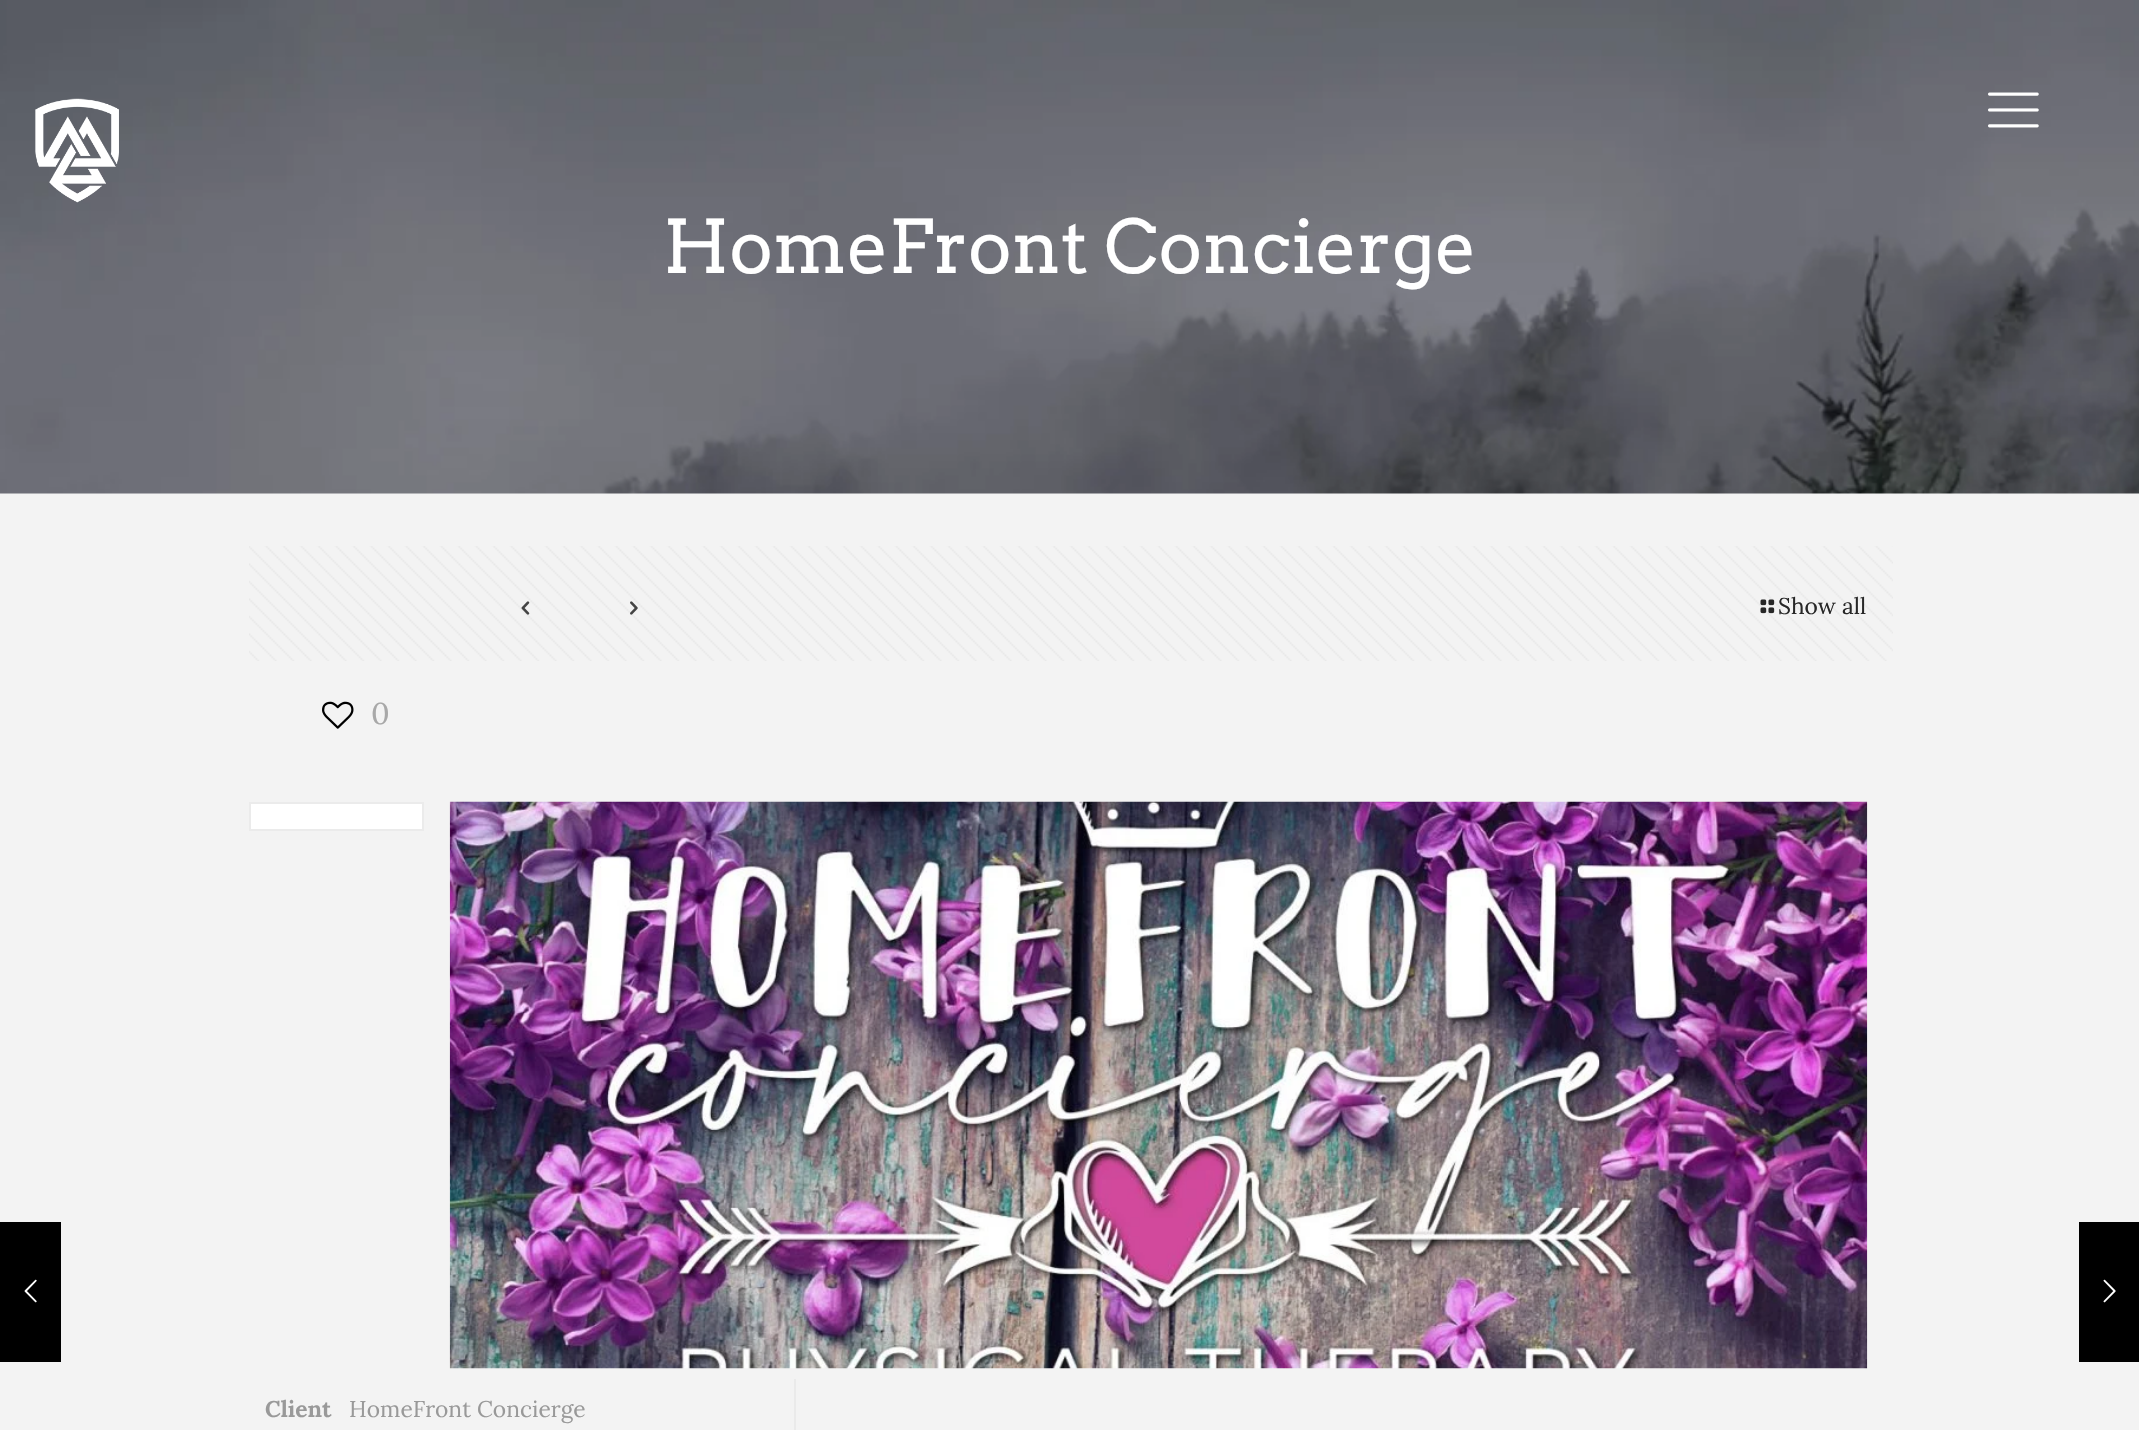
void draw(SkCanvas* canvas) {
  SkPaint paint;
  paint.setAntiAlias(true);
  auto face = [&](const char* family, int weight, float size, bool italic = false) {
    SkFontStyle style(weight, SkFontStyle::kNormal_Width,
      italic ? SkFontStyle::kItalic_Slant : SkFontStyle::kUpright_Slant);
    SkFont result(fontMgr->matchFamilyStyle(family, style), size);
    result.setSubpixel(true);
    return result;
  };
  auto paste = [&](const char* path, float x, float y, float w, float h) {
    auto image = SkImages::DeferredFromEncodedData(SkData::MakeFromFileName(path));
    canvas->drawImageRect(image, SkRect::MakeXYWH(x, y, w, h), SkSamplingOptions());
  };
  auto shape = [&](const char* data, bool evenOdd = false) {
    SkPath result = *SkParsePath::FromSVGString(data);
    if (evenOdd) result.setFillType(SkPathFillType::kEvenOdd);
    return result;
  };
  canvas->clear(0xfff3f3f3);
  paint.setColor(0xff000000);
  canvas->drawRect(SkRect::MakeXYWH(0, 1222, 61, 140), paint);
  paste("img/1.png", 24, 1279, 13, 24);
  paste("img/2.png", 0, 0, 2139, 494);
  paste("img/3.png", 35, 98, 84, 105);
  paste("img/4.png", 1988, 92, 51, 36);
  paste("img/5.png", 249, 546, 1644, 115);
  paste("img/6.png", 521, 601, 9, 14);
  paste("img/7.png", 630, 601, 8, 14);
  paste("img/8.png", 1760, 599, 15, 15);
  paste("img/9.png", 322, 701, 32, 28);
  paint.setColor(0xffffffff);
  canvas->drawRect(SkRect::MakeXYWH(250, 803, 173, 27), paint);
  paint.setStroke(true);
  paint.setStrokeWidth(2);
  paint.setColor(0xffebebeb);
  canvas->drawRect(SkRect::MakeXYWH(250, 803, 173, 27), paint);
  paste("img/10.png", 449, 801, 1419, 568);
  paint.setStroke(false);
  paint.setColor(0xffeaeaea);
  canvas->drawPath(shape("M796 1379V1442L794 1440V1379Z"), paint);
  paint.setColor(0xff000000);
  canvas->drawRect(SkRect::MakeXYWH(2079, 1222, 60, 140), paint);
  paste("img/11.png", 2103, 1279, 13, 24);
  auto f0 = face("Arvo", 400, 73.5f);
  paint.setColor(0xffffffff);
  canvas->drawString("HomeFront Concierge", 663, 273, f0, paint);
  auto f1 = face("Lora", 400, 22.75f);
  paint.setColor(0xff272727);
  canvas->drawString("Show all", 1778, 614, f1, paint);
  auto f2 = face("Lora", 400, 30);
  paint.setColor(0xffa8a8a8);
  canvas->drawString("0", 371, 724, f2, paint);
  auto f3 = face("Lora", 700, 22.75f);
  paint.setColor(0xff999999);
  canvas->drawString("Client", 265, 1417, f3, paint);
  canvas->drawString("HomeFront Concierge", 349, 1417, f1, paint);
}
